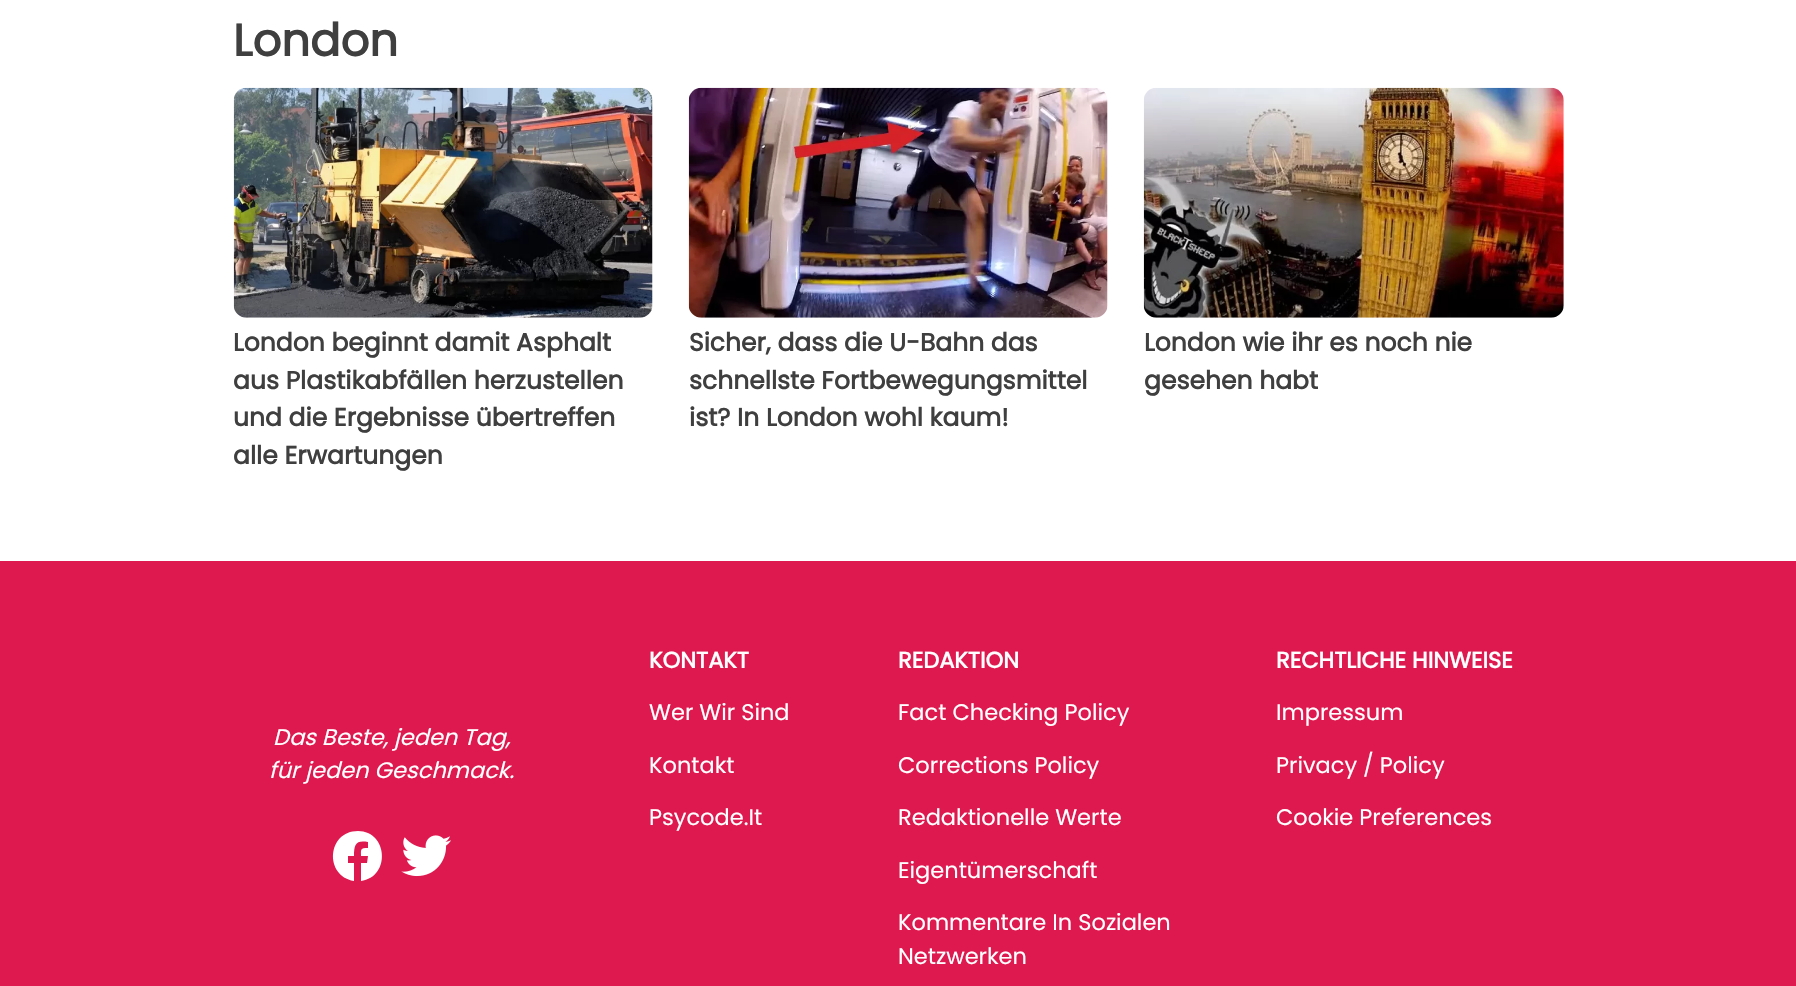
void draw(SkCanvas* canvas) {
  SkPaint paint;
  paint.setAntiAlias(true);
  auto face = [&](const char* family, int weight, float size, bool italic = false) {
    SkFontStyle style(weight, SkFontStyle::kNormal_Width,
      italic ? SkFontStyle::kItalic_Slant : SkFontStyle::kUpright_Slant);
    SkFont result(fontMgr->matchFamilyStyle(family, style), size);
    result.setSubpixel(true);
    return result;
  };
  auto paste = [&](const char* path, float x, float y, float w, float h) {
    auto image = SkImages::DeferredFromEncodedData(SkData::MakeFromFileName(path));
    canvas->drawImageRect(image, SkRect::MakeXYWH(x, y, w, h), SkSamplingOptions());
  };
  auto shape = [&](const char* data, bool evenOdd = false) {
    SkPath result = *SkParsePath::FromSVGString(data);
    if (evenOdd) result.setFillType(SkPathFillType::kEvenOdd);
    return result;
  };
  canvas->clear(0xffffffff);
  paste("img/1.png", 233, 87, 420, 231);
  paste("img/2.png", 688, 87, 420, 231);
  paste("img/3.png", 1143, 87, 421, 231);
  paint.setColor(0xffde194f);
  canvas->drawRect(SkRect::MakeXYWH(0, 561, 1796, 425), paint);
  paint.setColor(0xffffffff);
  canvas->drawPath(shape("M358 831C327 831 324 876 354 881V863H348V856H354C354 844 356 840 368 842V848C360 848 361 849 361 856H368L367 863H361V881C391 877 388 831 358 831Z"), paint);
  paste("img/4.png", 401, 835, 50, 42);
  auto f0 = face("Poppins", 700, 45);
  paint.setColor(0xff3f3f3f);
  canvas->drawString("London", 233, 56, f0, paint);
  auto f1 = face("Poppins", 700, 25);
  {
    const struct { const char* s; float x, y; } items[] = {
      {"London beginnt damit Asphalt", 233, 351},
      {"aus Plastikabfällen herzustellen", 233, 389},
      {"und die Ergebnisse übertreffen", 233, 426},
      {"alle Erwartungen", 233, 464},
      {"Sicher, dass die U-Bahn das", 689, 351},
      {"schnellste Fortbewegungsmittel", 689, 389},
      {"ist? In London wohl kaum!", 689, 426},
      {"London wie ihr es noch nie", 1144, 351},
      {"gesehen habt", 1144, 389},
    };
    for (auto [s, x, y] : items) {
      canvas->drawString(s, x, y, f1, paint);
    }
  }
  auto f2 = face("Poppins", 400, 22.5f, true);
  paint.setColor(0xffffffff);
  canvas->drawString("Das Beste, jeden Tag,", 273, 745, f2, paint);
  canvas->drawString("für jeden Geschmack.", 269, 778, f2, paint);
  auto f3 = face("Poppins", 700, 22.5f);
  canvas->drawString("KONTAKT", 649, 668, f3, paint);
  auto f4 = face("Poppins", 400, 22.5f);
  {
    const struct { const char* s; float x, y; } items[] = {
      {"Wer Wir Sind", 649, 720},
      {"Kontakt", 649, 773},
      {"Psycode.It", 649, 825},
    };
    for (auto [s, x, y] : items) {
      canvas->drawString(s, x, y, f4, paint);
    }
  }
  canvas->drawString("REDAKTION", 898, 668, f3, paint);
  {
    const struct { const char* s; float x, y; } items[] = {
      {"Fact Checking Policy", 898, 720},
      {"Corrections Policy", 898, 773},
      {"Redaktionelle Werte", 898, 825},
      {"Eigentümerschaft", 898, 878},
      {"Kommentare In Sozialen", 898, 930},
      {"Netzwerken", 898, 964},
    };
    for (auto [s, x, y] : items) {
      canvas->drawString(s, x, y, f4, paint);
    }
  }
  canvas->drawString("RECHTLICHE HINWEISE", 1276, 668, f3, paint);
  {
    const struct { const char* s; float x, y; } items[] = {
      {"Impressum", 1276, 720},
      {"Privacy / Policy", 1276, 773},
      {"Cookie Preferences", 1276, 825},
    };
    for (auto [s, x, y] : items) {
      canvas->drawString(s, x, y, f4, paint);
    }
  }
}
